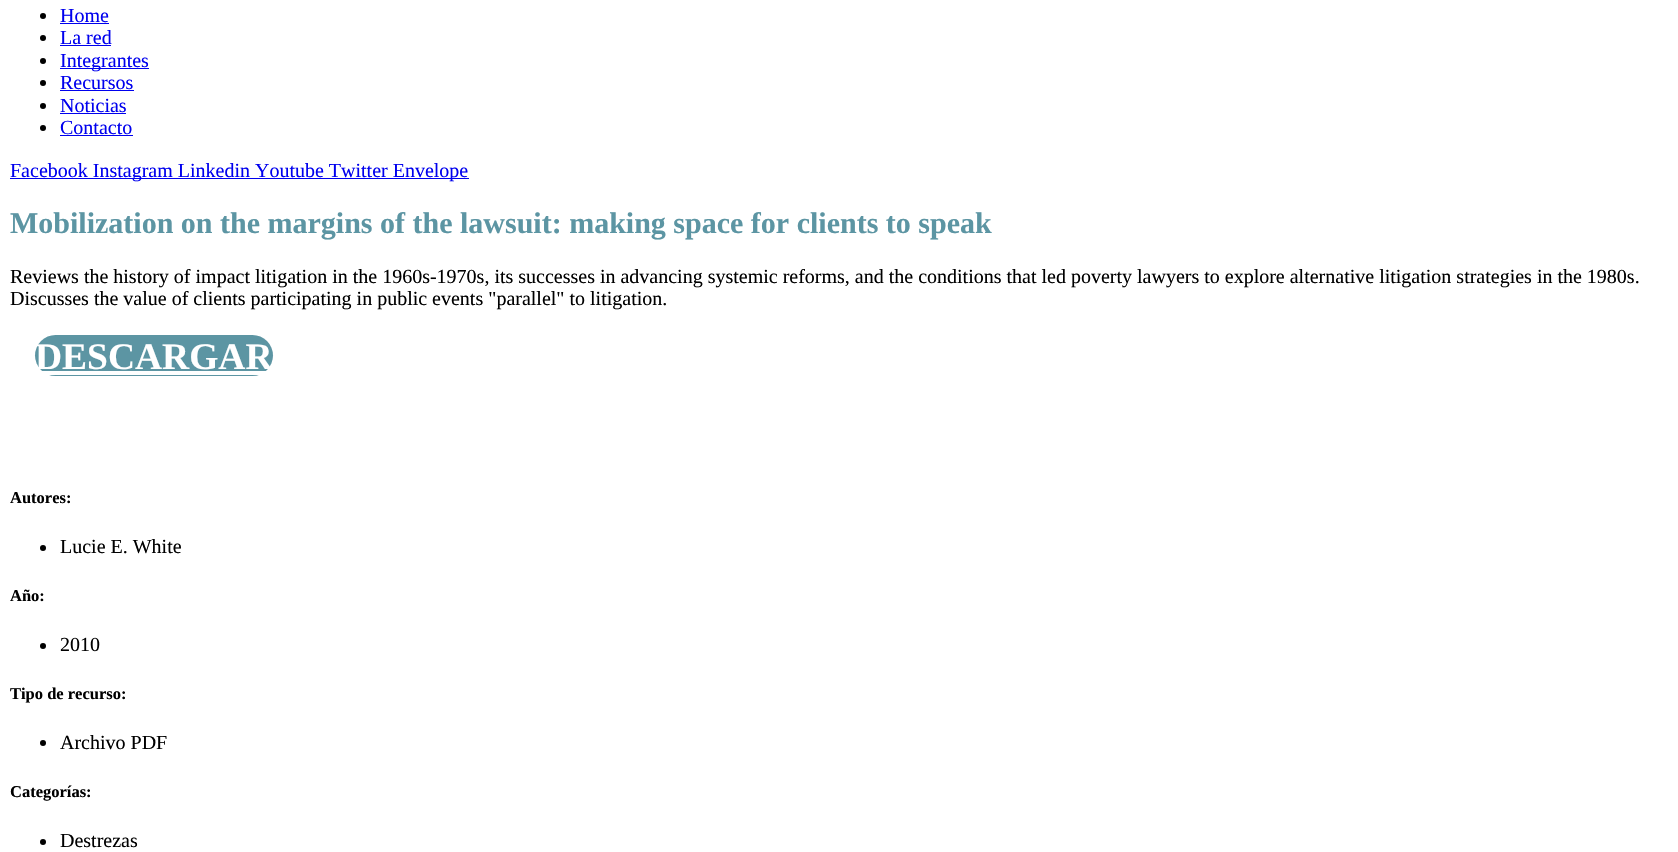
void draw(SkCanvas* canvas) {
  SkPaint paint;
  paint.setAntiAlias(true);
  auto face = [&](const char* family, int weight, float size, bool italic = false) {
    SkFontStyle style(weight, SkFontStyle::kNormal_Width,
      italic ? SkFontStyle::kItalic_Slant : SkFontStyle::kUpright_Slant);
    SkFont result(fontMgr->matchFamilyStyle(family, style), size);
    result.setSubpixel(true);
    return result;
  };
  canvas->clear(0xffffffff);
  paint.setColor(0xff000000);
  canvas->drawCircle(43, 16, 3, paint);
  paint.setColor(0xff0000ee);
  canvas->drawRect(SkRect::MakeXYWH(60, 23, 49, 1), paint);
  paint.setColor(0xff000000);
  canvas->drawCircle(43, 38, 3, paint);
  paint.setColor(0xff0000ee);
  canvas->drawRect(SkRect::MakeXYWH(60, 45, 51, 1), paint);
  paint.setColor(0xff000000);
  canvas->drawCircle(43, 61, 3, paint);
  paint.setColor(0xff0000ee);
  canvas->drawRect(SkRect::MakeXYWH(60, 68, 89, 1), paint);
  paint.setColor(0xff000000);
  canvas->drawCircle(43, 83, 3, paint);
  paint.setColor(0xff0000ee);
  canvas->drawRect(SkRect::MakeXYWH(60, 90, 74, 1), paint);
  paint.setColor(0xff000000);
  canvas->drawCircle(43, 106, 3, paint);
  paint.setColor(0xff0000ee);
  canvas->drawRect(SkRect::MakeXYWH(60, 113, 66, 1), paint);
  paint.setColor(0xff000000);
  canvas->drawCircle(43, 128, 3, paint);
  paint.setColor(0xff0000ee);
  canvas->drawRect(SkRect::MakeXYWH(60, 135, 73, 1), paint);
  canvas->drawRect(SkRect::MakeXYWH(10, 178, 459, 1), paint);
  paint.setColor(0xff5c95a3);
  canvas->drawRoundRect(SkRect::MakeXYWH(35, 335, 238, 41), 20.5f, 20.5f, paint);
  paint.setColor(0xffffffff);
  canvas->drawRect(SkRect::MakeXYWH(35, 371, 238, 4), paint);
  paint.setColor(0xff000000);
  canvas->drawCircle(43, 548, 3, paint);
  canvas->drawCircle(43, 646, 3, paint);
  canvas->drawCircle(43, 743, 3, paint);
  canvas->drawCircle(43, 842, 3, paint);
  auto f0 = face("Liberation Serif", 400, 20);
  paint.setColor(0xff0000ee);
  {
    const struct { const char* s; float x, y; } items[] = {
      {"Home", 60, 22},
      {"La red", 60, 44},
      {"Integrantes", 60, 67},
      {"Recursos", 60, 89},
      {"Noticias", 60, 112},
      {"Contacto", 60, 134},
      {"Facebook Instagram Linkedin Youtube Twitter Envelope", 10, 177},
    };
    for (auto [s, x, y] : items) {
      canvas->drawString(s, x, y, f0, paint);
    }
  }
  auto f1 = face("Liberation Serif", 700, 30);
  paint.setColor(0xff5c95a3);
  canvas->drawString("Mobilization on the margins of the lawsuit: making space for clients to speak", 10, 233, f1, paint);
  paint.setColor(0xff000000);
  canvas->drawString("Reviews the history of impact litigation in the 1960s-1970s, its successes in advancing systemic reforms, and the conditions that led poverty lawyers to explore alternative litigation strategies in the 1980s.", 10, 283, f0, paint);
  canvas->drawString("Discusses the value of clients participating in public events \"parallel\" to litigation.", 10, 305, f0, paint);
  auto f2 = face("Liberation Serif", 700, 37.5f);
  paint.setColor(0xffffffff);
  canvas->drawString("DESCARGAR", 35, 369, f2, paint);
  auto f3 = face("Liberation Serif", 700, 16.5f);
  paint.setColor(0xff000000);
  canvas->drawString("Autores:", 10, 503, f3, paint);
  canvas->drawString("Lucie E. White", 60, 553, f0, paint);
  canvas->drawString("Año:", 10, 601, f3, paint);
  canvas->drawString("2010", 60, 651, f0, paint);
  canvas->drawString("Tipo de recurso:", 10, 699, f3, paint);
  canvas->drawString("Archivo PDF", 60, 749, f0, paint);
  canvas->drawString("Categorías:", 10, 797, f3, paint);
  canvas->drawString("Destrezas", 60, 847, f0, paint);
}
